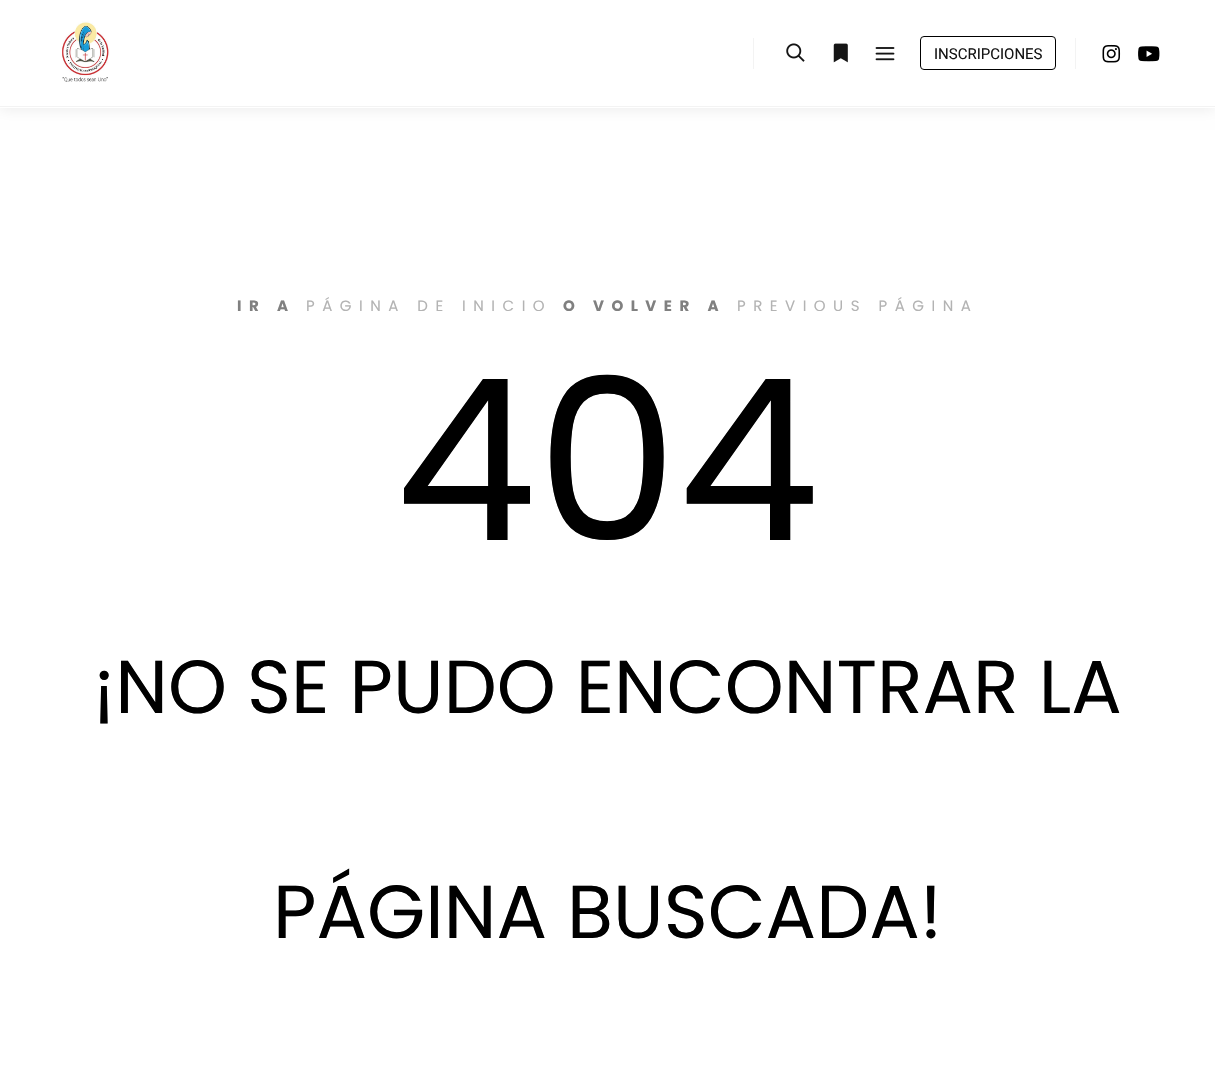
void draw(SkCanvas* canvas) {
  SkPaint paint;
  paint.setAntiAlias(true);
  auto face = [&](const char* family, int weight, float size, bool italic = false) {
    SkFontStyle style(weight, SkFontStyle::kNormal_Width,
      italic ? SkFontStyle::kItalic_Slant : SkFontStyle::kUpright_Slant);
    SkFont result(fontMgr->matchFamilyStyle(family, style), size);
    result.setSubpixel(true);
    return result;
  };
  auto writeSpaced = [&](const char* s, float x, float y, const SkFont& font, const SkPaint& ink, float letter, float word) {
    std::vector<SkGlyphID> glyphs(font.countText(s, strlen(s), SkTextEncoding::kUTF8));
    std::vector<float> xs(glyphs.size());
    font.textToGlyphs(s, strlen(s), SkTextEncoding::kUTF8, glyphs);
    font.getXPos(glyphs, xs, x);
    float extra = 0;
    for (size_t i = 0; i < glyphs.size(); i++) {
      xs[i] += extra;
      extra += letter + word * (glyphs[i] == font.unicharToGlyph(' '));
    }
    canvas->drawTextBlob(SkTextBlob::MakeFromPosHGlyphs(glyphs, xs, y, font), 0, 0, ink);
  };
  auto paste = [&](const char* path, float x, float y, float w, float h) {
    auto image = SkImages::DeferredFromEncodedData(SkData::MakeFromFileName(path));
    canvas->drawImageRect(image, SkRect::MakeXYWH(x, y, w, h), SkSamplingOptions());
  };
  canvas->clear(0xffffffff);
  paint.setColor(0x17000000);
  paint.setMaskFilter(SkMaskFilter::MakeBlur(kNormal_SkBlurStyle, 7.5f));
  canvas->drawRect(SkRect::MakeXYWH(0, 0, 1215, 108), paint);
  paint.setMaskFilter(nullptr);
  paint.setColor(0xffffffff);
  canvas->drawRect(SkRect::MakeXYWH(0, 0, 1215, 108), paint);
  paint.setColor(0xfff3f3f3);
  canvas->drawRect(SkRect::MakeXYWH(0, 106, 1215, 1), paint);
  paste("img/1.png", 62, 21, 48, 61);
  canvas->drawRect(SkRect::MakeXYWH(753, 38, 1, 31), paint);
  paste("img/2.png", 786, 43, 19, 19);
  paste("img/3.png", 833, 43, 15, 20);
  paste("img/4.png", 875, 47, 20, 14);
  paint.setStroke(true);
  paint.setStrokeWidth(1);
  paint.setColor(0xff000000);
  canvas->drawRoundRect(SkRect::MakeXYWH(920.5f, 36.5f, 135, 33), 3.5f, 3.5f, paint);
  paint.setStroke(false);
  paint.setColor(0xfff3f3f3);
  canvas->drawRect(SkRect::MakeXYWH(1075, 38, 1, 31), paint);
  paste("img/5.png", 1102, 44, 19, 19);
  paste("img/6.png", 1138, 46, 22, 16);
  auto f0 = face("Roboto", 400, 15);
  paint.setColor(0xff151515);
  canvas->drawString("INSCRIPCIONES", 934, 59, f0, paint);
  auto f1 = face("Poppins", 700, 15);
  paint.setColor(0xff808080);
  writeSpaced("IR A", 237, 311, f1, paint, 7.5f, 0);
  auto f2 = face("Poppins", 400, 15);
  paint.setColor(0xffb3b3b3);
  writeSpaced("PÁGINA DE INICIO", 306, 311, f2, paint, 7.5f, 0);
  paint.setColor(0xff808080);
  writeSpaced("O VOLVER A", 563, 311, f1, paint, 7.5f, 0);
  paint.setColor(0xffb3b3b3);
  writeSpaced("PREVIOUS PÁGINA", 737, 311, f2, paint, 7.5f, 0);
  auto f3 = face("Poppins", 400, 225);
  paint.setColor(0xff000000);
  canvas->drawString("404", 395, 540, f3, paint);
  auto f4 = face("Poppins", 400, 75);
  canvas->drawString("¡NO SE PUDO ENCONTRAR LA", 93, 713, f4, paint);
  canvas->drawString("PÁGINA BUSCADA!", 273, 938, f4, paint);
}
